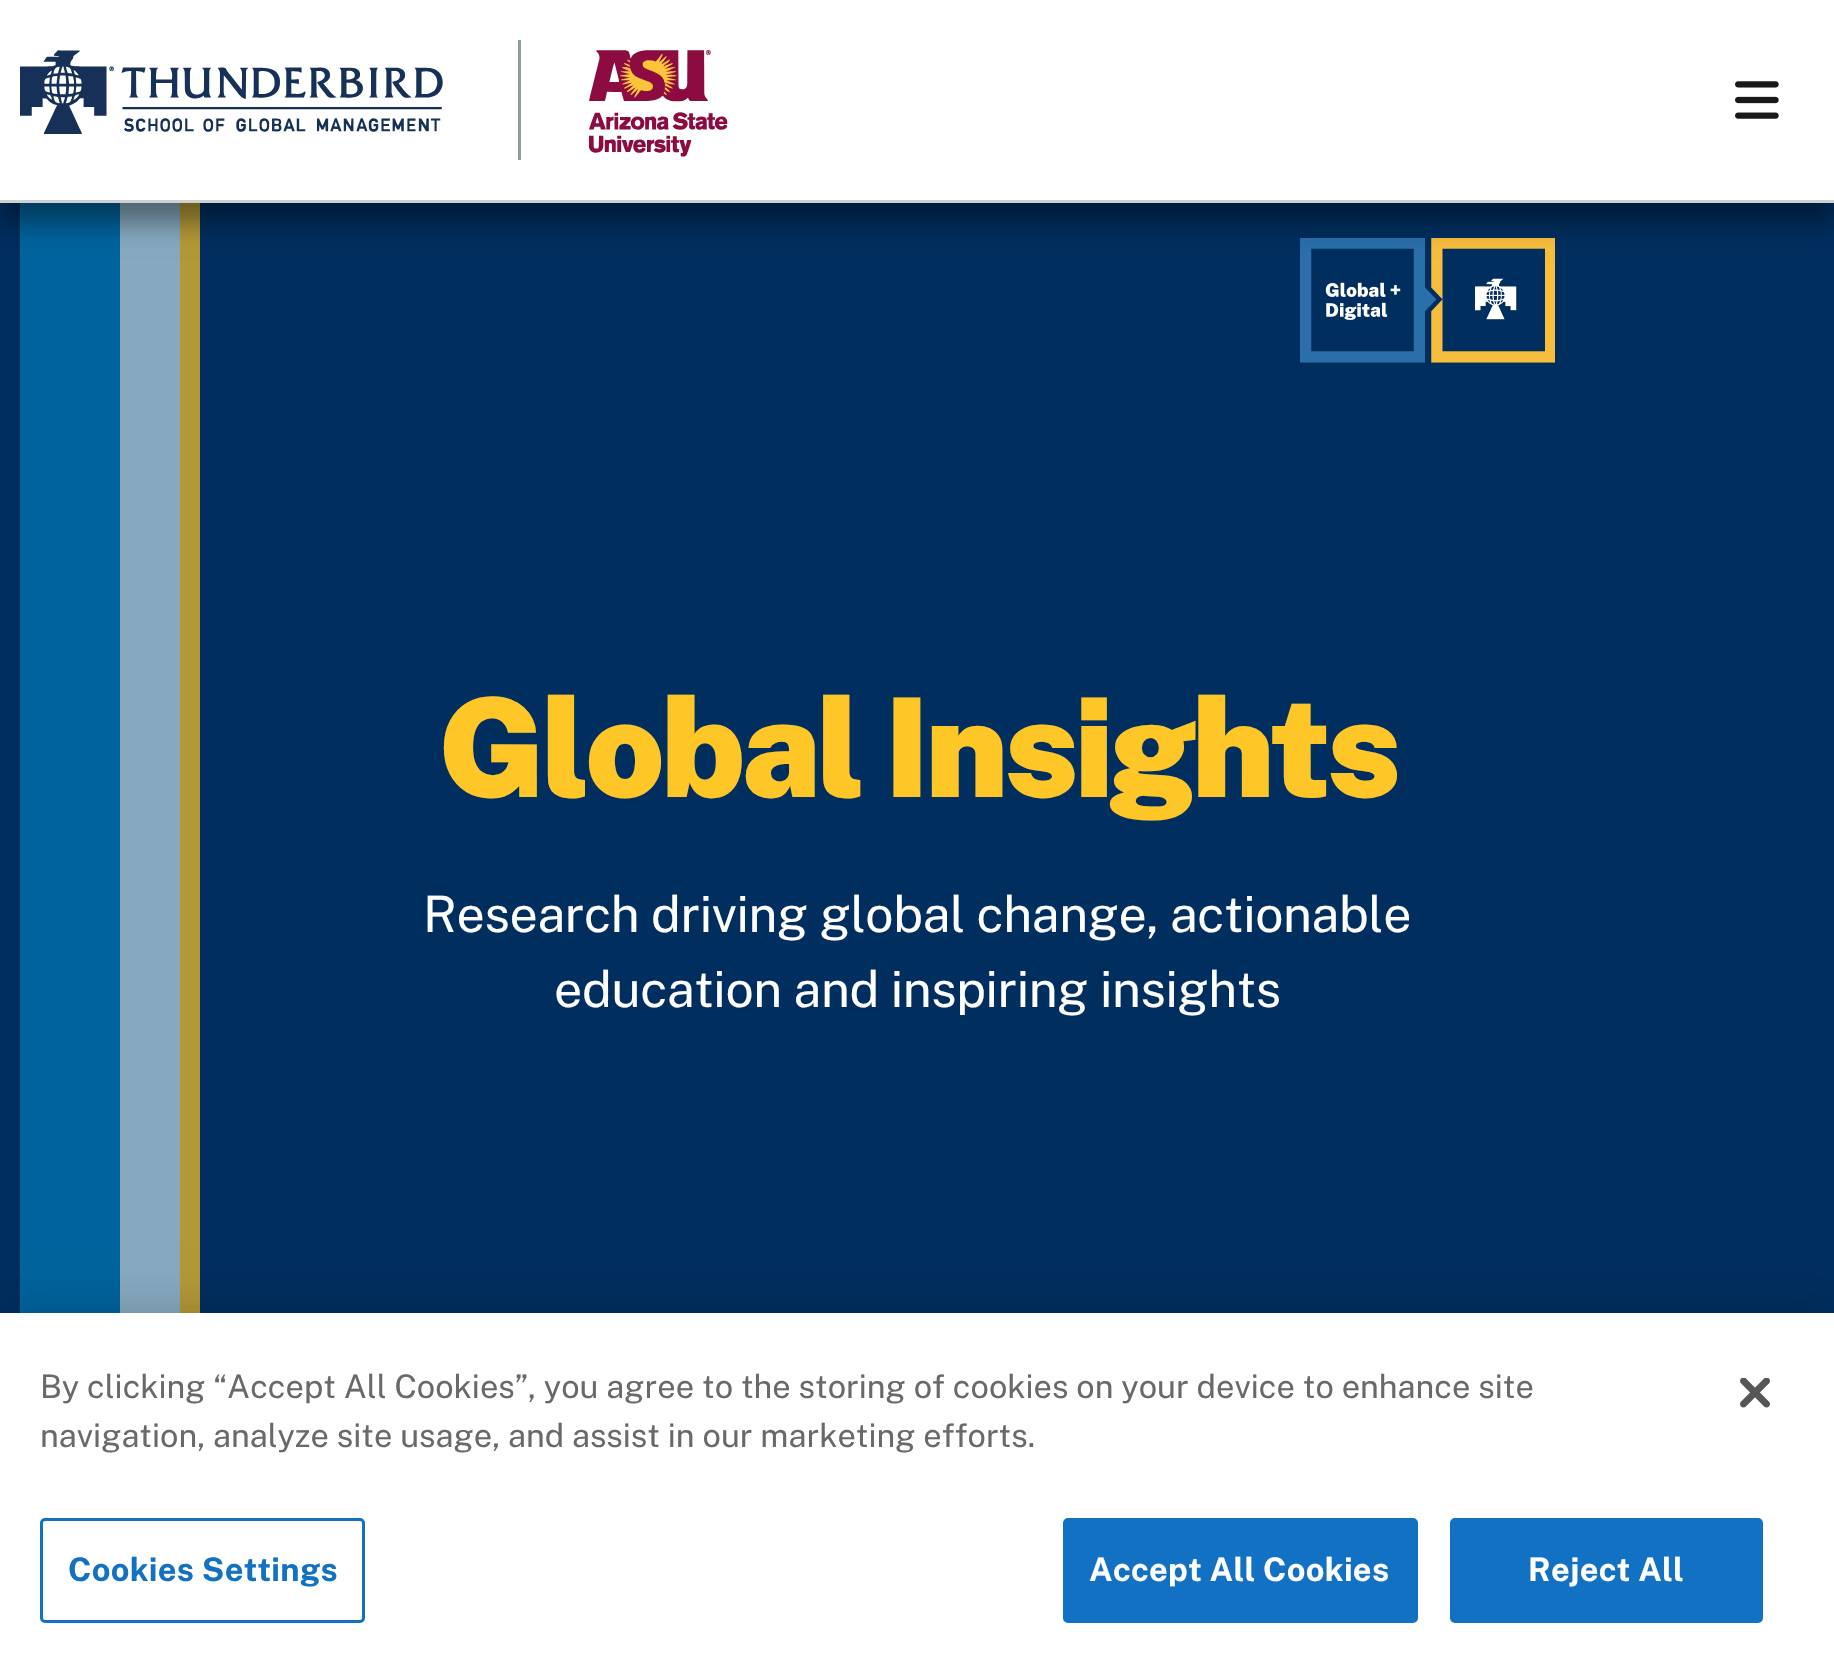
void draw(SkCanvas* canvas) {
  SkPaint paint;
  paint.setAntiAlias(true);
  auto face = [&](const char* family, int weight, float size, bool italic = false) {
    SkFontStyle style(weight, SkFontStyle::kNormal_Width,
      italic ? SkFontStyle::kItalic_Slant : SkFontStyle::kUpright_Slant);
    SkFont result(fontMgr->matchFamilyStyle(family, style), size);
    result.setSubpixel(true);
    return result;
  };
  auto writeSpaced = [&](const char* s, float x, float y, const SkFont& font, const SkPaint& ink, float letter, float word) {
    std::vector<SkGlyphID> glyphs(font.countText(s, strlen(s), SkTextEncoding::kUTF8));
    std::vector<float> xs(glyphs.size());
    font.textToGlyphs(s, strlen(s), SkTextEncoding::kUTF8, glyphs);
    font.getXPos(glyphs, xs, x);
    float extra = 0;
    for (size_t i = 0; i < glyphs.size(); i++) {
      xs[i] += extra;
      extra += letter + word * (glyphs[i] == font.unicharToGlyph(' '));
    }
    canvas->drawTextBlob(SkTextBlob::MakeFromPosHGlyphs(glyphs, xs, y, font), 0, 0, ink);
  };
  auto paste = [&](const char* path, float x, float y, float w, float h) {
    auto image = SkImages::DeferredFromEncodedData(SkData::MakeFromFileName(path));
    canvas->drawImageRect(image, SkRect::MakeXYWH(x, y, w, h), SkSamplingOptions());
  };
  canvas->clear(0xff002e5f);
  {
    const struct { float x, y, w, h; SkColor color; } items[] = {
      {20, 203, 100, 1110, 0xff01639d},
      {120, 203, 60, 1110, 0xff86a9c0},
      {180, 203, 20, 1110, 0xffb39838},
    };
    for (auto [x, y, w, h, color] : items) {
      paint.setColor(color);
      canvas->drawRect(SkRect::MakeXYWH(x, y, w, h), paint);
    }
  }
  paste("img/4.png", 1300, 238, 255, 125);
  paint.setColor(0x66000000);
  paint.setMaskFilter(SkMaskFilter::MakeBlur(kNormal_SkBlurStyle, 12.5f));
  canvas->drawRect(SkRect::MakeXYWH(0, 20, 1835, 203), paint);
  paint.setMaskFilter(nullptr);
  paint.setColor(0xffffffff);
  canvas->drawRect(SkRect::MakeXYWH(0, 0, 1834, 200), paint);
  paint.setColor(0xffd0d0d0);
  canvas->drawRect(SkRect::MakeXYWH(0, 200, 1834, 3), paint);
  paste("img/1.png", 20, 50, 423, 84);
  paint.setColor(0xff8e9c9c);
  canvas->drawRect(SkRect::MakeXYWH(518, 40, 3, 120), paint);
  paste("img/2.png", 588, 50, 140, 107);
  paste("img/3.png", 1735, 81, 44, 38);
  paint.setColor(0x33000000);
  paint.setMaskFilter(SkMaskFilter::MakeBlur(kNormal_SkBlurStyle, 22.5f));
  canvas->drawRect(SkRect::MakeXYWH(0, 1313, 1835, 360), paint);
  paint.setMaskFilter(nullptr);
  paint.setColor(0xffffffff);
  canvas->drawRect(SkRect::MakeXYWH(0, 1313, 1834, 359), paint);
  paint.setStroke(true);
  paint.setStrokeWidth(3);
  paint.setColor(0xff1371c3);
  canvas->drawRoundRect(SkRect::MakeXYWH(41.5f, 1519.5f, 322, 102), 3.5f, 3.5f, paint);
  paint.setStroke(false);
  canvas->drawRoundRect(SkRect::MakeXYWH(1064.5f, 1519.5f, 352, 102), 3.5f, 3.5f, paint);
  paint.setStroke(true);
  canvas->drawRoundRect(SkRect::MakeXYWH(1064.5f, 1519.5f, 352, 102), 3.5f, 3.5f, paint);
  paint.setStroke(false);
  canvas->drawRoundRect(SkRect::MakeXYWH(1451.5f, 1519.5f, 310, 102), 3.5f, 3.5f, paint);
  paint.setStroke(true);
  canvas->drawRoundRect(SkRect::MakeXYWH(1451.5f, 1519.5f, 310, 102), 3.5f, 3.5f, paint);
  paste("img/5.png", 1740, 1378, 30, 30);
  auto f0 = face("Public Sans", 900, 137.5f);
  paint.setStroke(false);
  paint.setColor(0xffffc627);
  writeSpaced("Global Insights", 438, 797, f0, paint, -4.6f, 0);
  auto f1 = face("Public Sans", 400, 50);
  paint.setColor(0xffffffff);
  writeSpaced("Research driving global change, actionable", 423, 932, f1, paint, -0.35f, 0);
  writeSpaced("education and inspiring insights", 554, 1007, f1, paint, -0.35f, 0);
  auto f2 = face("Public Sans", 400, 32.5f);
  paint.setColor(0xff696969);
  canvas->drawString("By clicking “Accept All Cookies”, you agree to the storing of cookies on your device to enhance site", 40, 1398, f2, paint);
  canvas->drawString("navigation, analyze site usage, and assist in our marketing efforts.", 40, 1447, f2, paint);
  auto f3 = face("Public Sans", 700, 32.5f);
  paint.setColor(0xff1371c3);
  writeSpaced("Cookies Settings", 68, 1581, f3, paint, 0.3f, 0);
  paint.setColor(0xffffffff);
  writeSpaced("Accept All Cookies", 1089, 1581, f3, paint, 0.3f, 0);
  writeSpaced("Reject All", 1528, 1581, f3, paint, 0.3f, 0);
}
